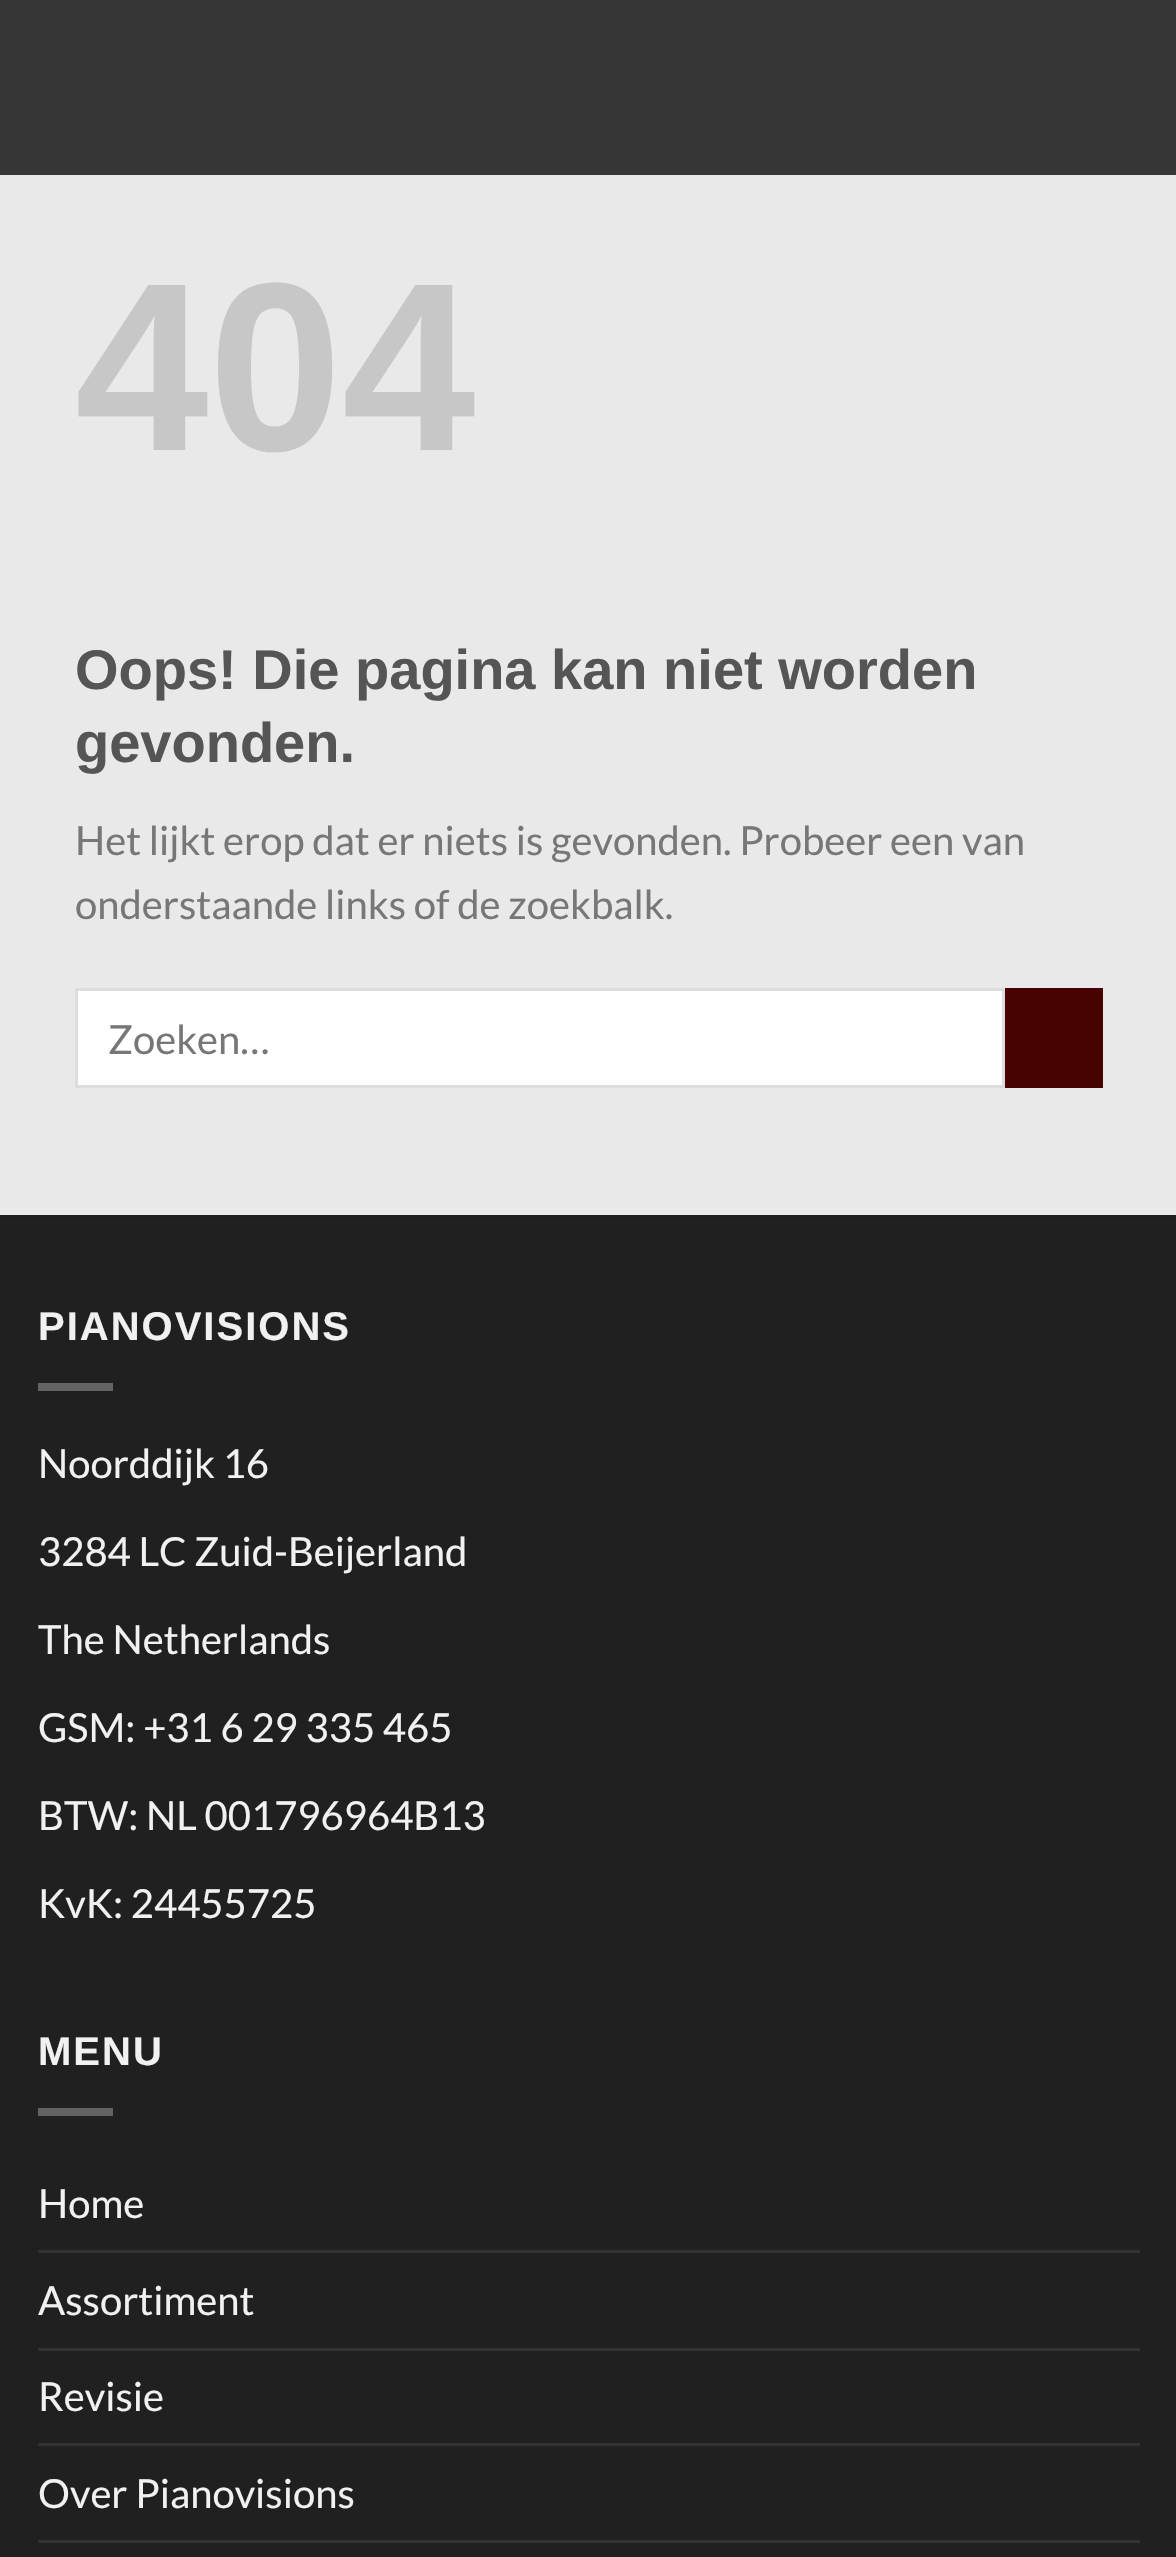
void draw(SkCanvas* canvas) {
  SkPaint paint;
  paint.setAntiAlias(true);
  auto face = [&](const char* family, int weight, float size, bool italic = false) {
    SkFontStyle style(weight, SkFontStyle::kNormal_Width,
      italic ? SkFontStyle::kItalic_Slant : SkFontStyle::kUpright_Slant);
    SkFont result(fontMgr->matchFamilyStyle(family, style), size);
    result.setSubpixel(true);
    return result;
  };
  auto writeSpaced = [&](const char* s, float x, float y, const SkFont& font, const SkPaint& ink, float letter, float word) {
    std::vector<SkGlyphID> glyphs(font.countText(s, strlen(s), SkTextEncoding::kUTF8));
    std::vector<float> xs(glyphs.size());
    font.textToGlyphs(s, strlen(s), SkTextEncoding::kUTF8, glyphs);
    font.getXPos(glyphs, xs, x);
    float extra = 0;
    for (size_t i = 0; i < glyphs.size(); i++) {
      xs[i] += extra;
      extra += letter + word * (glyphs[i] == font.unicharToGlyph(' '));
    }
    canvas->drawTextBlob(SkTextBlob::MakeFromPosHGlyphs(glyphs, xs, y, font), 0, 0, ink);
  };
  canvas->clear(0xffe9e9e9);
  paint.setColor(0xff363636);
  canvas->drawRect(SkRect::MakeXYWH(0, 0, 1176, 175), paint);
  paint.setColor(0xffffffff);
  canvas->drawRect(SkRect::MakeXYWH(76.5f, 989.5f, 927, 97), paint);
  paint.setStroke(true);
  paint.setStrokeWidth(3);
  paint.setColor(0xffdddddd);
  canvas->drawRect(SkRect::MakeXYWH(76.5f, 989.5f, 927, 97), paint);
  paint.setStroke(false);
  {
    const struct { float x, y, w, h; SkColor color; } items[] = {
      {1005, 988, 98, 100, 0xff490202},
      {0, 1218, 1176, 1339, 0xff202020},
      {0, 1215, 1176, 3, 0xff1e1e1e},
      {38, 1383, 75, 8, 0xff636363},
      {38, 2108, 75, 8, 0xff636363},
      {38, 2250, 1102, 3, 0xff323232},
      {38, 2348, 1102, 3, 0xff323232},
      {38, 2443, 1102, 3, 0xff323232},
      {38, 2540, 1102, 3, 0xff323232},
    };
    for (auto [x, y, w, h, color] : items) {
      paint.setColor(color);
      canvas->drawRect(SkRect::MakeXYWH(x, y, w, h), paint);
    }
  }
  auto f0 = face("Liberation Sans", 700, 240);
  paint.setColor(0xffc7c7c7);
  canvas->drawString("404", 75, 450, f0, paint);
  auto f1 = face("Liberation Sans", 700, 56);
  paint.setColor(0xff555555);
  canvas->drawString("Oops! Die pagina kan niet worden", 75, 689, f1, paint);
  canvas->drawString("gevonden.", 75, 762, f1, paint);
  auto f2 = face("Lato", 400, 40);
  paint.setColor(0xff777777);
  {
    const struct { const char* s; float x, y; } items[] = {
      {"Het lijkt erop dat er niets is gevonden. Probeer een van", 75, 855},
      {"onderstaande links of de zoekbalk.", 75, 919},
      {"Zoeken…", 108, 1054},
    };
    for (auto [s, x, y] : items) {
      canvas->drawString(s, x, y, f2, paint);
    }
  }
  auto f3 = face("Liberation Sans", 700, 40);
  paint.setColor(0xfff1f1f1);
  writeSpaced("PIANOVISIONS", 38, 1340, f3, paint, 2, 0);
  {
    const struct { const char* s; float x, y; } items[] = {
      {"Noorddijk 16", 38, 1478},
      {"3284 LC Zuid-Beijerland", 38, 1566},
      {"The Netherlands", 38, 1654},
      {"GSM: +31 6 29 335 465", 38, 1742},
      {"BTW: NL 001796964B13", 38, 1830},
      {"KvK: 24455725", 38, 1918},
    };
    for (auto [s, x, y] : items) {
      canvas->drawString(s, x, y, f2, paint);
    }
  }
  writeSpaced("MENU", 38, 2065, f3, paint, 2, 0);
  {
    const struct { const char* s; float x, y; } items[] = {
      {"Home", 38, 2218},
      {"Assortiment", 38, 2315},
      {"Revisie", 38, 2411},
      {"Over Pianovisions", 38, 2508},
    };
    for (auto [s, x, y] : items) {
      canvas->drawString(s, x, y, f2, paint);
    }
  }
}
